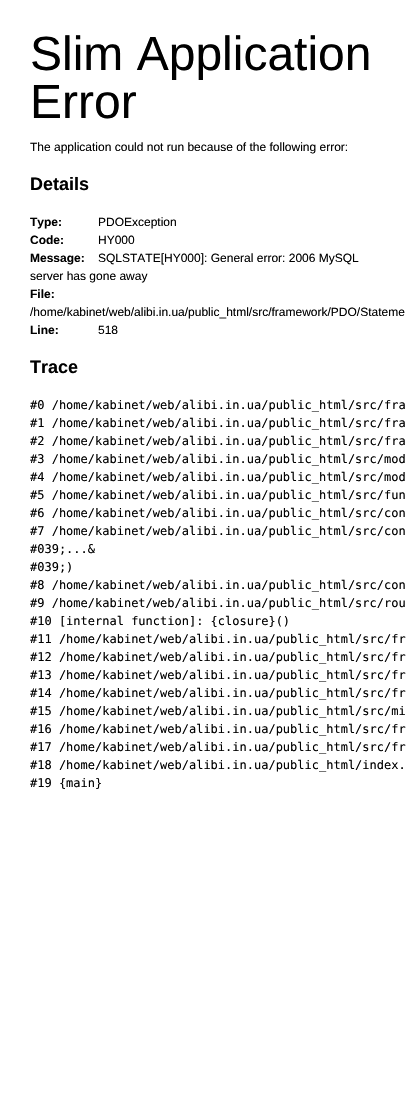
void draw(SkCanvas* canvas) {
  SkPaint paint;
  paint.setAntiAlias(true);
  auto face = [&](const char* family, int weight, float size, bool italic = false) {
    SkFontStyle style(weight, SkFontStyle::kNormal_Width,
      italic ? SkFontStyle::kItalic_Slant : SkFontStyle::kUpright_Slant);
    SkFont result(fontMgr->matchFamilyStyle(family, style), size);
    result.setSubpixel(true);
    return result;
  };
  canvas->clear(0xffffffff);
  auto f0 = face("Liberation Sans", 400, 48);
  paint.setColor(0xff000000);
  canvas->drawString("Slim Application", 30, 70, f0, paint);
  canvas->drawString("Error", 30, 118, f0, paint);
  auto f1 = face("Liberation Sans", 400, 12);
  canvas->drawString("The application could not run because of the following error:", 30, 151, f1, paint);
  auto f2 = face("Liberation Sans", 700, 18);
  canvas->drawString("Details", 30, 190, f2, paint);
  auto f3 = face("Liberation Sans", 700, 12);
  canvas->drawString("Type:", 30, 226, f3, paint);
  canvas->drawString("PDOException", 98, 226, f1, paint);
  canvas->drawString("Code:", 30, 244, f3, paint);
  canvas->drawString("HY000", 98, 244, f1, paint);
  canvas->drawString("Message:", 30, 262, f3, paint);
  canvas->drawString("SQLSTATE[HY000]: General error: 2006 MySQL", 98, 262, f1, paint);
  canvas->drawString("server has gone away", 30, 280, f1, paint);
  canvas->drawString("File:", 30, 298, f3, paint);
  canvas->drawString("/home/kabinet/web/alibi.in.ua/public_html/src/framework/PDO/Stateme", 30, 316, f1, paint);
  canvas->drawString("Line:", 30, 334, f3, paint);
  canvas->drawString("518", 98, 334, f1, paint);
  canvas->drawString("Trace", 30, 373, f2, paint);
  auto f4 = face("DejaVu Sans Mono", 400, 12);
  {
    const struct { const char* s; float x, y; } items[] = {
      {"#0 /home/kabinet/web/alibi.in.ua/public_html/src/fra", 30, 409},
      {"#1 /home/kabinet/web/alibi.in.ua/public_html/src/fra", 30, 427},
      {"#2 /home/kabinet/web/alibi.in.ua/public_html/src/fra", 30, 445},
      {"#3 /home/kabinet/web/alibi.in.ua/public_html/src/mod", 30, 463},
      {"#4 /home/kabinet/web/alibi.in.ua/public_html/src/mod", 30, 481},
      {"#5 /home/kabinet/web/alibi.in.ua/public_html/src/fun", 30, 499},
      {"#6 /home/kabinet/web/alibi.in.ua/public_html/src/con", 30, 517},
      {"#7 /home/kabinet/web/alibi.in.ua/public_html/src/con", 30, 535},
      {"#039;...&", 30, 553},
      {"#039;)", 30, 571},
      {"#8 /home/kabinet/web/alibi.in.ua/public_html/src/con", 30, 589},
      {"#9 /home/kabinet/web/alibi.in.ua/public_html/src/rou", 30, 607},
      {"#10 [internal function]: {closure}()", 30, 625},
      {"#11 /home/kabinet/web/alibi.in.ua/public_html/src/fr", 30, 643},
      {"#12 /home/kabinet/web/alibi.in.ua/public_html/src/fr", 30, 661},
      {"#13 /home/kabinet/web/alibi.in.ua/public_html/src/fr", 30, 679},
      {"#14 /home/kabinet/web/alibi.in.ua/public_html/src/fr", 30, 697},
      {"#15 /home/kabinet/web/alibi.in.ua/public_html/src/mi", 30, 715},
      {"#16 /home/kabinet/web/alibi.in.ua/public_html/src/fr", 30, 733},
      {"#17 /home/kabinet/web/alibi.in.ua/public_html/src/fr", 30, 751},
      {"#18 /home/kabinet/web/alibi.in.ua/public_html/index.", 30, 769},
      {"#19 {main}", 30, 787},
    };
    for (auto [s, x, y] : items) {
      canvas->drawString(s, x, y, f4, paint);
    }
  }
}
